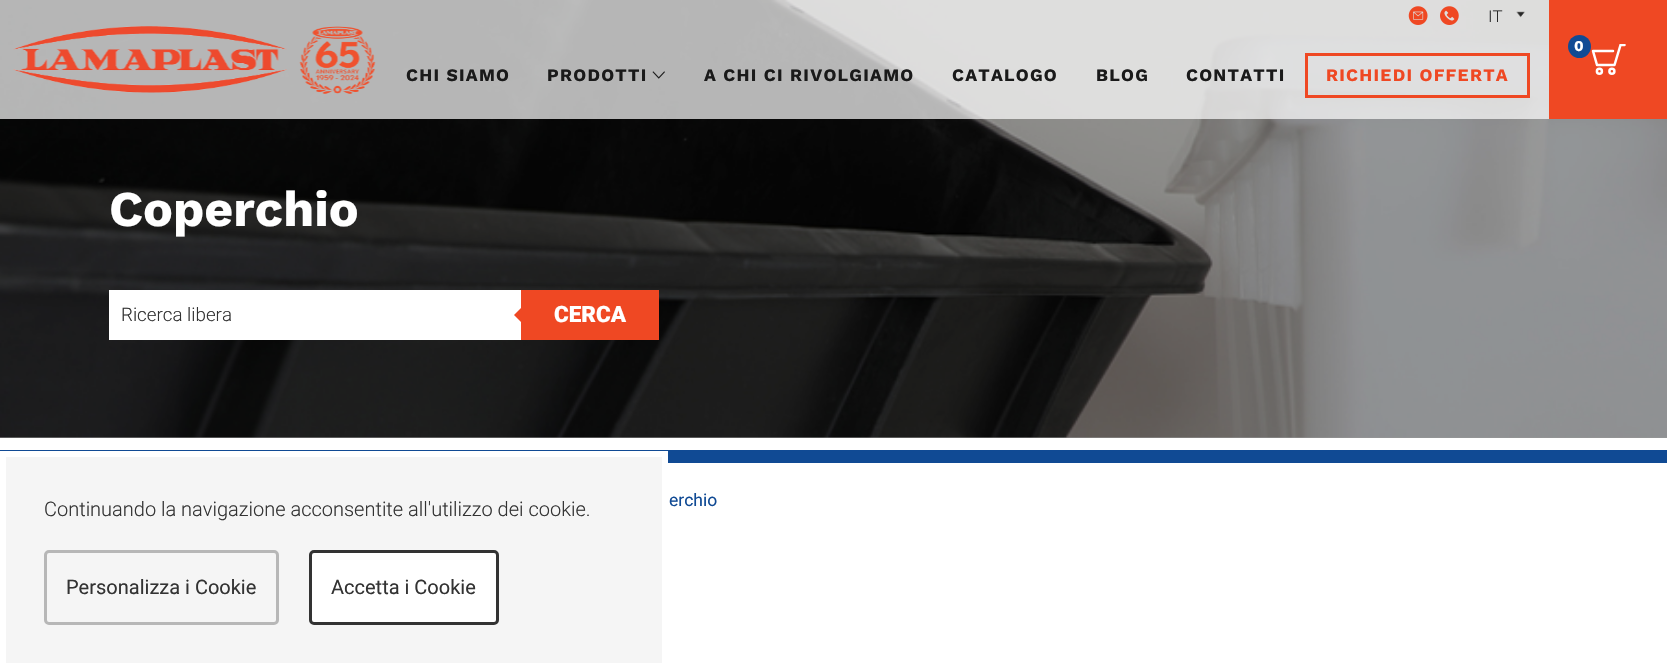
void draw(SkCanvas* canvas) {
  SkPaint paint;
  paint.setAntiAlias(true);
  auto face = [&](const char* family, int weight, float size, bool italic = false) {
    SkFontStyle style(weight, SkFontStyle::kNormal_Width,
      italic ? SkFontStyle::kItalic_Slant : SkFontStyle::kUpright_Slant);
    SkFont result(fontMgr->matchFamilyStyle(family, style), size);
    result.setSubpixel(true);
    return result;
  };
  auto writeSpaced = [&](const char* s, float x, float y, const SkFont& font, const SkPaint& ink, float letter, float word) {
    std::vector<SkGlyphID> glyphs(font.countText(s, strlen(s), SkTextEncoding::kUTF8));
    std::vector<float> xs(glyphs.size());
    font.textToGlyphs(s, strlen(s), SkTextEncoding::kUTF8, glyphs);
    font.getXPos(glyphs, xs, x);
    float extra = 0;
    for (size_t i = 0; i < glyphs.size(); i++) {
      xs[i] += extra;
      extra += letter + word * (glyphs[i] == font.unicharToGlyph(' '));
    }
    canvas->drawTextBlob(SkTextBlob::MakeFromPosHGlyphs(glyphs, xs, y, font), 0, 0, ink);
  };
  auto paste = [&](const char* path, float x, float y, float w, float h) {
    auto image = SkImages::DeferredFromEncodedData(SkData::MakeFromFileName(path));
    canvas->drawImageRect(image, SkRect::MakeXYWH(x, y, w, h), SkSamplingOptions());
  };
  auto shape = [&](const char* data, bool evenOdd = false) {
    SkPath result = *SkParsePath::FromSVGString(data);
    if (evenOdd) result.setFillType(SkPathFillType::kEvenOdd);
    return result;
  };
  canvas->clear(0xffffffff);
  paint.setColor(0xff999999);
  canvas->drawRect(SkRect::MakeXYWH(0, 437, 1667, 1), paint);
  paste("img/7.png", 0, 0, 1667, 438);
  paint.setColor(0xb3ffffff);
  canvas->drawRect(SkRect::MakeXYWH(0, 0, 1549, 119), paint);
  paste("img/1.png", 1408, 6, 20, 19);
  paste("img/2.png", 1440, 6, 19, 19);
  paste("img/3.png", 1516, 11, 9, 7);
  paste("img/4.png", 13, 26, 274, 67);
  paste("img/5.png", 299, 26, 77, 68);
  paint.setColor(0xffef4823);
  canvas->drawRect(SkRect::MakeXYWH(1549, 0, 118, 119), paint);
  canvas->save();
  canvas->clipRect(SkRect::MakeXYWH(1591, 44, 35, 31));
  paint.setStroke(true);
  paint.setStrokeWidth(2.5f);
  paint.setStrokeCap(SkPaint::kRound_Cap);
  paint.setStrokeJoin(SkPaint::kRound_Join);
  paint.setColor(0xffffffff);
  canvas->drawPath(shape("M1613 51H1593L1597 65H1614.5L1620.5 45H1624.5"), paint);
  canvas->restore();
  paint.setStrokeCap(SkPaint::kButt_Cap);
  paint.setStrokeJoin(SkPaint::kMiter_Join);
  canvas->drawCircle(1599.4f, 71.2f, 2.5f, paint);
  canvas->drawCircle(1611.9f, 71.2f, 2.5f, paint);
  paint.setStroke(false);
  paint.setColor(0xff104a94);
  canvas->drawCircle(1579.5f, 46.5f, 11.5f, paint);
  paste("img/6.png", 652, 71, 13, 8);
  paint.setStroke(true);
  paint.setStrokeWidth(3);
  paint.setColor(0xffef4823);
  canvas->drawRect(SkRect::MakeXYWH(1306.5f, 54.5f, 222, 42), paint);
  paint.setStroke(false);
  paint.setColor(0xffffffff);
  canvas->drawRect(SkRect::MakeXYWH(109, 290, 412, 50), paint);
  paint.setColor(0xffef4823);
  canvas->drawRect(SkRect::MakeXYWH(521, 290, 138, 50), paint);
  canvas->drawPath(shape("M524 305V325L514 315Z"), paint);
  paint.setColor(0xff104a94);
  canvas->drawRect(SkRect::MakeXYWH(0, 450, 1667, 13), paint);
  paint.setColor(0xfff5f5f5);
  canvas->drawRect(SkRect::MakeXYWH(3, 454, 662, 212), paint);
  paint.setStroke(true);
  paint.setStrokeWidth(6);
  paint.setColor(0xffffffff);
  canvas->drawRect(SkRect::MakeXYWH(3, 454, 662, 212), paint);
  paint.setStrokeWidth(3);
  paint.setColor(0xffb7b7b7);
  canvas->drawRoundRect(SkRect::MakeXYWH(45.5f, 551.5f, 232, 72), 3.5f, 3.5f, paint);
  paint.setStroke(false);
  paint.setColor(0xffffffff);
  canvas->drawRoundRect(SkRect::MakeXYWH(310.5f, 551.5f, 187, 72), 3.5f, 3.5f, paint);
  paint.setStroke(true);
  paint.setColor(0xff333333);
  canvas->drawRoundRect(SkRect::MakeXYWH(310.5f, 551.5f, 187, 72), 3.5f, 3.5f, paint);
  auto f0 = face("Work Sans", 300, 17.5f);
  paint.setStroke(false);
  paint.setColor(0xff1a1a1a);
  canvas->drawString("IT", 1488, 22, f0, paint);
  auto f1 = face("Work Sans", 700, 15);
  paint.setColor(0xffffffff);
  writeSpaced("0", 1574, 51, f1, paint, 1.25f, 0);
  auto f2 = face("Work Sans", 700, 17.5f);
  paint.setColor(0xff1a1a1a);
  {
    const struct { const char* s; float x, y; } items[] = {
      {"CHI SIAMO", 406, 81},
      {"PRODOTTI", 547, 81},
      {"A CHI CI RIVOLGIAMO", 704, 81},
      {"CATALOGO", 952, 81},
      {"BLOG", 1096, 81},
      {"CONTATTI", 1186, 81},
    };
    for (auto [s, x, y] : items) {
      writeSpaced(s, x, y, f2, paint, 1.25f, 0);
    }
  }
  paint.setColor(0xffef4823);
  writeSpaced("RICHIEDI OFFERTA", 1326, 81, f2, paint, 1.25f, 0);
  auto f3 = face("Work Sans", 700, 50);
  paint.setColor(0xffffffff);
  canvas->drawString("Coperchio", 109, 226, f3, paint);
  auto f4 = face("Roboto", 300, 18.75f);
  paint.setColor(0xff333333);
  canvas->drawString("Ricerca libera", 121, 321, f4, paint);
  auto f5 = face("Roboto", 900, 22.5f);
  paint.setColor(0xffffffff);
  canvas->drawString("CERCA", 554, 322, f5, paint);
  auto f6 = face("Roboto", 400, 17.5f);
  paint.setColor(0xff104a94);
  canvas->drawString("erchio", 669, 506, f6, paint);
  auto f7 = face("Roboto", 300, 20);
  paint.setColor(0xff333333);
  canvas->drawString("Continuando la navigazione acconsentite all'utilizzo dei cookie.", 44, 516, f7, paint);
  auto f8 = face("Roboto", 400, 20);
  canvas->drawString("Personalizza i Cookie", 66, 594, f8, paint);
  canvas->drawString("Accetta i Cookie", 331, 594, f8, paint);
}
